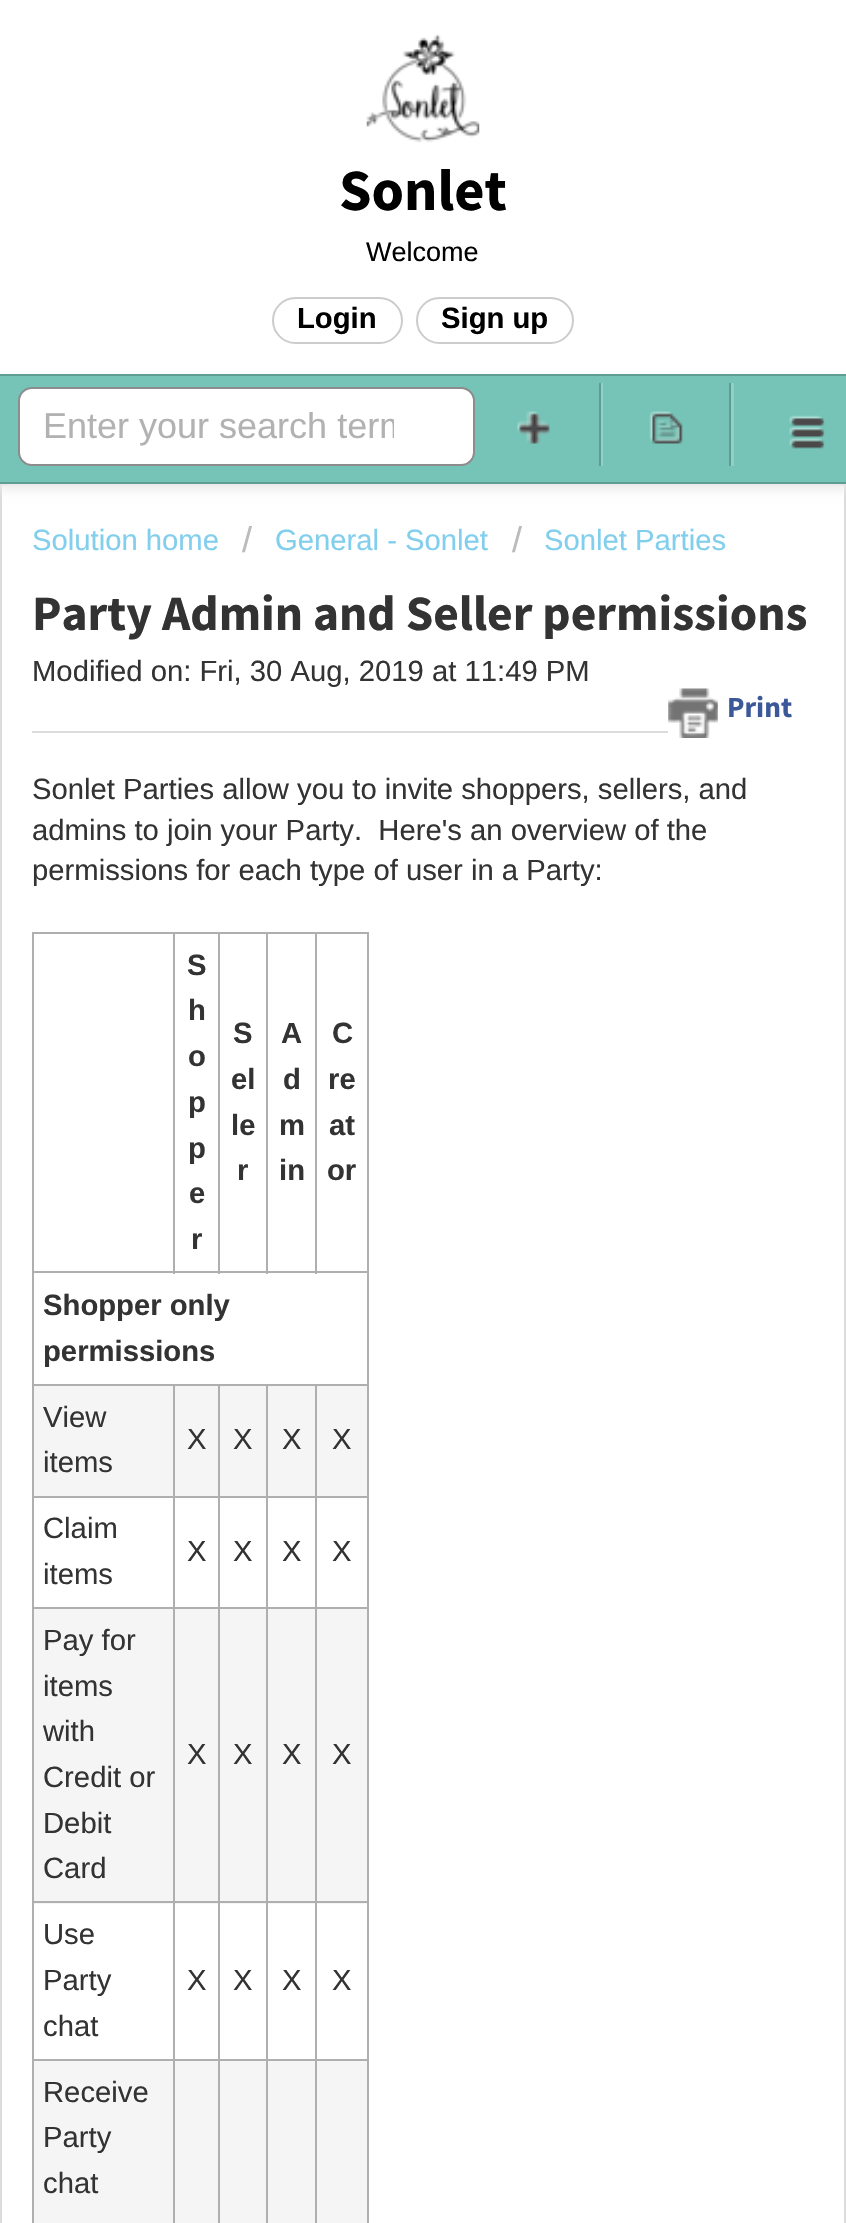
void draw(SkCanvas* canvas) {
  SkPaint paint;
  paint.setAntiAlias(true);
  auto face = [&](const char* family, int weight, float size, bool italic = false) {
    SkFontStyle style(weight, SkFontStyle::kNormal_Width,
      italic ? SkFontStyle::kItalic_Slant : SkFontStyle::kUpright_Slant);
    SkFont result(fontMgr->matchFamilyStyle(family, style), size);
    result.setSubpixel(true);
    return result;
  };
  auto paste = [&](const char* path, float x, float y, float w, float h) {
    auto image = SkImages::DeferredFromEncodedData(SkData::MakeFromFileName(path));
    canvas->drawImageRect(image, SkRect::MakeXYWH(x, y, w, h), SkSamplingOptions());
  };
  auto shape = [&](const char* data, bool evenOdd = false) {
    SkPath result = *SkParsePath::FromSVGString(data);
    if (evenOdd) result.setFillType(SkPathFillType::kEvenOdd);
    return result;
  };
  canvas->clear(0xffffffff);
  paste("img/1.png", 366, 34, 114, 109);
  paint.setStroke(true);
  paint.setStrokeWidth(2);
  paint.setColor(0xffcccccc);
  canvas->drawRoundRect(SkRect::MakeXYWH(273, 298, 129, 45), 22.5f, 22.5f, paint);
  canvas->drawRoundRect(SkRect::MakeXYWH(417, 298, 156, 45), 22.5f, 22.5f, paint);
  paint.setColor(0xffdcdcdc);
  canvas->drawRect(SkRect::MakeXYWH(1, 485, 844, 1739), paint);
  paint.setStroke(false);
  paint.setColor(0xffeeeeee);
  paint.setMaskFilter(SkMaskFilter::MakeBlur(kNormal_SkBlurStyle, 4.5f));
  canvas->drawRect(SkRect::MakeXYWH(0, 380, 846, 111), paint);
  paint.setMaskFilter(nullptr);
  {
    const struct { float x, y, w, h; SkColor color; } items[] = {
      {0, 376, 846, 106, 0xff75c4b7},
      {0, 374, 846, 2, 0xff5e9d92},
      {0, 482, 846, 2, 0xff5e9d92},
    };
    for (auto [x, y, w, h, color] : items) {
      paint.setColor(color);
      canvas->drawRect(SkRect::MakeXYWH(x, y, w, h), paint);
    }
  }
  paste("img/2.png", 789, 415, 36, 34);
  paint.setColor(0xffffffff);
  canvas->drawRoundRect(SkRect::MakeXYWH(19, 388, 455, 77), 13, 13, paint);
  paint.setStroke(true);
  paint.setColor(0xff8c8c8c);
  canvas->drawRoundRect(SkRect::MakeXYWH(19, 388, 455, 77), 13, 13, paint);
  paint.setStroke(false);
  paint.setColor(0xff91d0c5);
  canvas->drawPath(shape("M470 466H603V383H601V466Z"), paint);
  paint.setColor(0xff5e9d92);
  canvas->drawRect(SkRect::MakeXYWH(599, 383, 2, 83), paint);
  paste("img/3.png", 517, 411, 33, 33);
  paint.setColor(0xff91d0c5);
  canvas->drawPath(shape("M603 466H734V383H731V466Z"), paint);
  paint.setColor(0xff5e9d92);
  canvas->drawRect(SkRect::MakeXYWH(729, 383, 2, 83), paint);
  paste("img/4.png", 649, 411, 34, 33);
  paste("img/5.png", 668, 688, 50, 50);
  {
    const struct { float x, y, w, h; SkColor color; } items[] = {
      {32, 731, 636, 2, 0xffdcdcdc},
      {315, 932, 54, 2, 0xffafafaf},
      {32, 1271, 337, 2, 0xffafafaf},
      {315, 932, 2, 342, 0xffafafaf},
      {266, 932, 51, 2, 0xffafafaf},
      {266, 932, 2, 342, 0xffafafaf},
      {218, 932, 50, 2, 0xffafafaf},
      {218, 932, 2, 342, 0xffafafaf},
      {173, 932, 48, 2, 0xffafafaf},
      {173, 932, 2, 342, 0xffafafaf},
      {32, 932, 144, 2, 0xffafafaf},
      {315, 1384, 54, 2, 0xffafafaf},
      {34, 1386, 333, 110, 0xfff5f5f5},
      {315, 1496, 54, 2, 0xffafafaf},
      {315, 1607, 54, 2, 0xffafafaf},
      {34, 1609, 333, 295, 0xfff5f5f5},
      {315, 1901, 54, 2, 0xffafafaf},
      {315, 2059, 54, 2, 0xffafafaf},
      {34, 2061, 333, 162, 0xfff5f5f5},
      {315, 2059, 2, 164, 0xffafafaf},
      {266, 2059, 51, 2, 0xffafafaf},
      {315, 1901, 2, 160, 0xffafafaf},
      {266, 1901, 51, 2, 0xffafafaf},
      {315, 1607, 2, 297, 0xffafafaf},
      {266, 1607, 51, 2, 0xffafafaf},
      {315, 1496, 2, 113, 0xffafafaf},
      {266, 1496, 51, 2, 0xffafafaf},
      {315, 1384, 2, 115, 0xffafafaf},
      {266, 1384, 51, 2, 0xffafafaf},
      {266, 2059, 2, 164, 0xffafafaf},
      {218, 2059, 50, 2, 0xffafafaf},
      {266, 1901, 2, 160, 0xffafafaf},
      {218, 1901, 50, 2, 0xffafafaf},
      {266, 1607, 2, 297, 0xffafafaf},
      {218, 1607, 50, 2, 0xffafafaf},
      {266, 1496, 2, 113, 0xffafafaf},
      {218, 1496, 50, 2, 0xffafafaf},
      {266, 1384, 2, 115, 0xffafafaf},
      {218, 1384, 50, 2, 0xffafafaf},
      {218, 2059, 2, 164, 0xffafafaf},
      {173, 2059, 48, 2, 0xffafafaf},
      {218, 1901, 2, 160, 0xffafafaf},
      {173, 1901, 48, 2, 0xffafafaf},
      {218, 1607, 2, 297, 0xffafafaf},
      {173, 1607, 48, 2, 0xffafafaf},
      {218, 1496, 2, 113, 0xffafafaf},
      {173, 1496, 48, 2, 0xffafafaf},
      {218, 1384, 2, 115, 0xffafafaf},
      {173, 1384, 48, 2, 0xffafafaf},
      {173, 2059, 2, 164, 0xffafafaf},
      {32, 2059, 144, 2, 0xffafafaf},
      {173, 1901, 2, 160, 0xffafafaf},
      {32, 1901, 144, 2, 0xffafafaf},
      {173, 1607, 2, 297, 0xffafafaf},
      {32, 1607, 144, 2, 0xffafafaf},
      {173, 1496, 2, 113, 0xffafafaf},
      {32, 1496, 144, 2, 0xffafafaf},
      {173, 1384, 2, 115, 0xffafafaf},
      {32, 1384, 144, 2, 0xffafafaf},
      {32, 2059, 2, 164, 0xffafafaf},
      {32, 1901, 2, 160, 0xffafafaf},
      {32, 1607, 2, 297, 0xffafafaf},
      {32, 1496, 2, 113, 0xffafafaf},
      {32, 1384, 2, 115, 0xffafafaf},
      {32, 1271, 2, 115, 0xffafafaf},
      {32, 932, 2, 342, 0xffafafaf},
      {367, 2059, 2, 164, 0xffafafaf},
      {367, 1901, 2, 160, 0xffafafaf},
      {367, 1607, 2, 297, 0xffafafaf},
      {367, 1496, 2, 113, 0xffafafaf},
      {367, 1384, 2, 115, 0xffafafaf},
      {367, 1271, 2, 115, 0xffafafaf},
      {367, 932, 2, 342, 0xffafafaf},
    };
    for (auto [x, y, w, h, color] : items) {
      paint.setColor(color);
      canvas->drawRect(SkRect::MakeXYWH(x, y, w, h), paint);
    }
  }
  auto f0 = face("Source Sans Pro", 700, 58.5f);
  paint.setColor(0xff000000);
  canvas->drawString("Sonlet", 339, 210, f0, paint);
  auto f1 = face("Liberation Sans", 400, 27);
  canvas->drawString("Welcome", 366, 261, f1, paint);
  auto f2 = face("Liberation Sans", 700, 29.25f);
  canvas->drawString("Login", 297, 328, f2, paint);
  canvas->drawString("Sign up", 441, 328, f2, paint);
  canvas->save();
  canvas->clipRect(SkRect::MakeXYWH(43, 407, 351, 41));
  auto f3 = face("Liberation Sans", 400, 36);
  paint.setColor(0xffb2b2b2);
  canvas->drawString("Enter your search term", 43, 438, f3, paint);
  canvas->restore();
  auto f4 = face("Liberation Sans", 400, 29.25f);
  paint.setColor(0xff82ceed);
  canvas->drawString("Solution home", 32, 550, f4, paint);
  paint.setColor(0xffbbbbbb);
  canvas->drawString("/", 242, 552, f3, paint);
  paint.setColor(0xff82ceed);
  canvas->drawString("General - Sonlet", 275, 550, f4, paint);
  paint.setColor(0xffbbbbbb);
  canvas->drawString("/", 512, 552, f3, paint);
  paint.setColor(0xff82ceed);
  canvas->drawString("Sonlet Parties", 544, 550, f4, paint);
  auto f5 = face("Source Sans Pro", 700, 49.5f);
  paint.setColor(0xff333333);
  canvas->drawString("Party Admin and Seller permissions", 32, 630, f5, paint);
  auto f6 = face("Source Sans Pro", 700, 29.25f);
  paint.setColor(0xff3b5998);
  canvas->drawString("Print", 727, 717, f6, paint);
  paint.setColor(0xff333333);
  {
    const struct { const char* s; float x, y; } items[] = {
      {"Modified on: Fri, 30 Aug, 2019 at 11:49 PM", 32, 681},
      {"Sonlet Parties allow you to invite shoppers, sellers, and", 32, 799},
      {"admins to join your Party.  Here's an overview of the", 32, 840},
      {"permissions for each type of user in a Party:", 32, 880},
    };
    for (auto [s, x, y] : items) {
      canvas->drawString(s, x, y, f4, paint);
    }
  }
  {
    const struct { const char* s; float x, y; } items[] = {
      {"S", 187, 975},
      {"h", 188, 1020},
      {"o", 188, 1066},
      {"p", 188, 1112},
      {"p", 188, 1158},
      {"e", 189, 1203},
      {"r", 191, 1249},
      {"S", 233, 1043},
      {"el", 231, 1089},
      {"le", 231, 1135},
      {"r", 237, 1180},
      {"A", 281, 1043},
      {"d", 283, 1089},
      {"m", 279, 1135},
      {"in", 279, 1180},
      {"C", 332, 1043},
      {"re", 328, 1089},
      {"at", 329, 1135},
      {"or", 327, 1180},
      {"Shopper only", 43, 1315},
      {"permissions", 43, 1361},
    };
    for (auto [s, x, y] : items) {
      canvas->drawString(s, x, y, f2, paint);
    }
  }
  {
    const struct { const char* s; float x, y; } items[] = {
      {"View", 43, 1427},
      {"items", 43, 1472},
      {"X", 187, 1449},
      {"X", 233, 1449},
      {"X", 282, 1449},
      {"X", 332, 1449},
      {"Claim", 43, 1538},
      {"items", 43, 1584},
      {"X", 187, 1561},
      {"X", 233, 1561},
      {"X", 282, 1561},
      {"X", 332, 1561},
      {"Pay for", 43, 1650},
      {"items", 43, 1696},
      {"with", 43, 1741},
      {"Credit or", 43, 1787},
      {"Debit", 43, 1833},
      {"Card", 43, 1878},
      {"X", 187, 1764},
      {"X", 233, 1764},
      {"X", 282, 1764},
      {"X", 332, 1764},
      {"Use", 43, 1944},
      {"Party", 43, 1990},
      {"chat", 43, 2036},
      {"X", 187, 1990},
      {"X", 233, 1990},
      {"X", 282, 1990},
      {"X", 332, 1990},
      {"Receive", 43, 2102},
      {"Party", 43, 2147},
      {"chat", 43, 2193},
    };
    for (auto [s, x, y] : items) {
      canvas->drawString(s, x, y, f4, paint);
    }
  }
}
